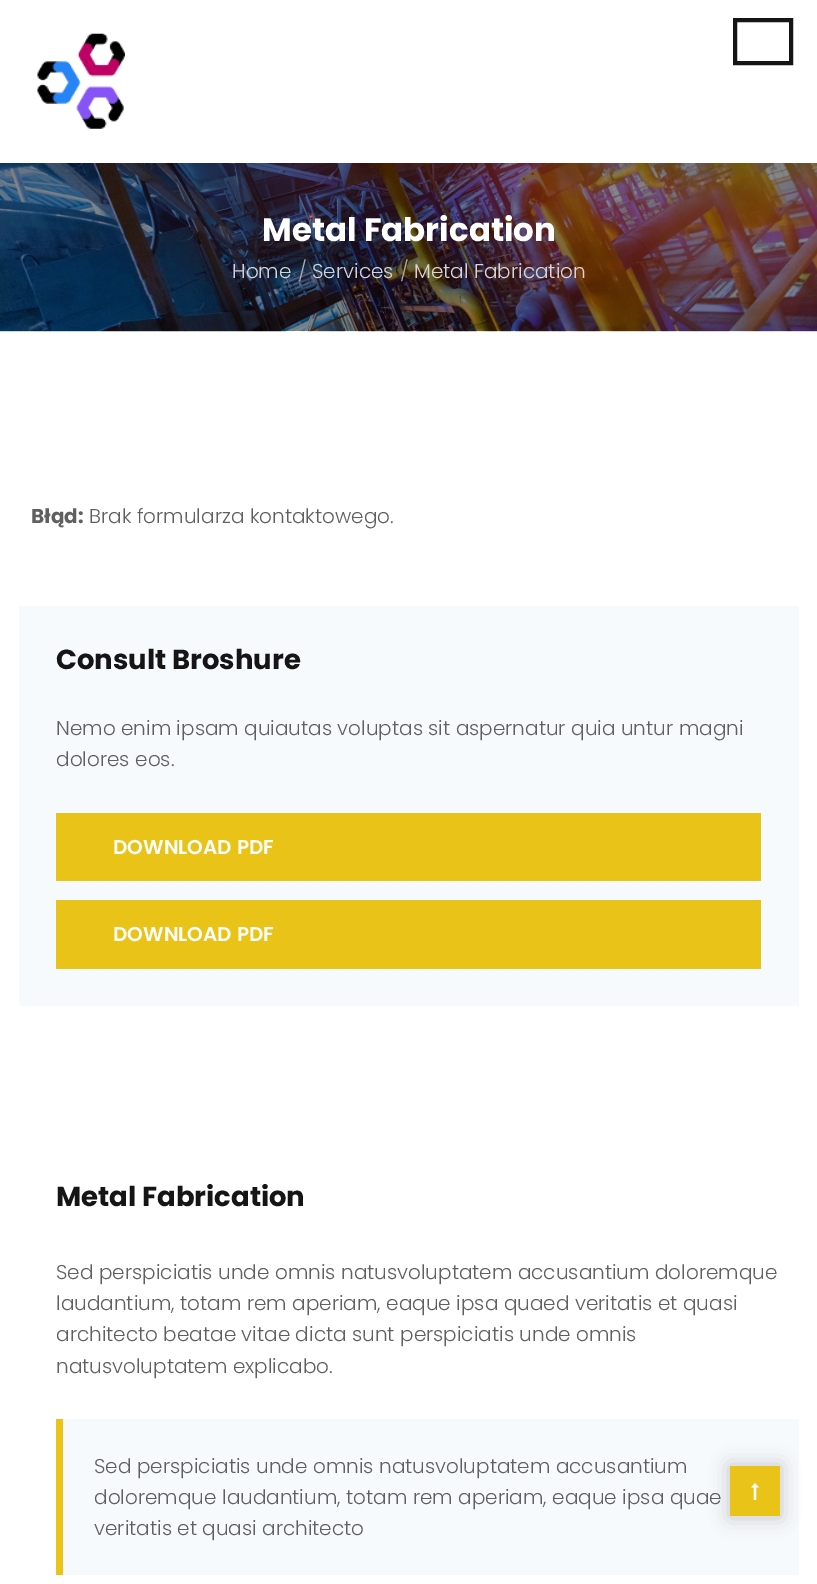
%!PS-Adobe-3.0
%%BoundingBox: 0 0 817 1584
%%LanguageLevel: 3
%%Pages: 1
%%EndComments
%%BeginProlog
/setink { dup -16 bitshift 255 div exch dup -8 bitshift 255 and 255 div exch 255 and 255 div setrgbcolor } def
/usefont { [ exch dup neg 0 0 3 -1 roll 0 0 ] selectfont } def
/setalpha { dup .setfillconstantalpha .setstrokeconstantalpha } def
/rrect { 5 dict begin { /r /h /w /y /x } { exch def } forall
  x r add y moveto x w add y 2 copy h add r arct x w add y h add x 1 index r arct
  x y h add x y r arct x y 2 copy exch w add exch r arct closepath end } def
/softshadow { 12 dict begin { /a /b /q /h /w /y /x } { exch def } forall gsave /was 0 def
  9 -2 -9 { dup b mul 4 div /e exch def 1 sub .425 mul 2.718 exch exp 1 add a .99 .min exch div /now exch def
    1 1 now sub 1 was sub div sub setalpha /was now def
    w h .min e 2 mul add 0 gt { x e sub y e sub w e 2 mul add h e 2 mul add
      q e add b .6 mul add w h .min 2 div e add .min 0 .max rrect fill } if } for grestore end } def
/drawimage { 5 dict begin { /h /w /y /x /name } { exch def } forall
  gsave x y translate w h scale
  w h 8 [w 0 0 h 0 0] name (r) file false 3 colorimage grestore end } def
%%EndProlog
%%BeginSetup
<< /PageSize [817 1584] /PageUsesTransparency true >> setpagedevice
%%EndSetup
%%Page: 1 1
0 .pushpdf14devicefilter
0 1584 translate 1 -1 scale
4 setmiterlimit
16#FFFFFF setink
0 0 817 1584 rectfill
(img2.raw) 0 163 817 169 drawimage
16#000000 setink
0 0 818 163 0 15.5 0.1 softshadow
16#FFFFFF setink
0 0 817 163 rectfill
(img1.raw) 37 33 88 96 drawimage
16#151515 setink
4 setlinewidth
735 20 56 43 rectstroke
/Poppins-Bold 32.5 usefont
16#FFFFFF setink
262 241 moveto (Metal Fabrication) show
/Poppins-Light 20 usefont
16#D1D4D9 setink
232 278 moveto (Home) show
16#AAADB2 setink
298 278 moveto (/) show
16#D1D4D9 setink
312 278 moveto (Services) show
16#AEABA7 setink
400 278 moveto (/) show
16#D9D5D5 setink
414 278 moveto (Metal Fabrication) show
/Poppins-Bold 20 usefont
16#606060 setink
31 523 moveto (Błąd:) show
/Poppins-Light 20 usefont
89 523 moveto (Brak formularza kontaktowego.) show
16#F7FAFD setink
19 606 780 400 rectfill
/Poppins-Bold 27.5 usefont
16#151515 setink
56 669 moveto (Consult Broshure) show
/Poppins-Light 20 usefont
16#606060 setink
56 735 moveto (Nemo enim ipsam quiautas voluptas sit aspernatur quia untur magni) show
56 766 moveto (dolores eos.) show
16#EAC319 setink
56 813 705 68 rectfill
/Poppins-SemiBold 20 usefont
16#FFFFFF setink
113 854 moveto (DOWNLOAD PDF) show
16#EAC319 setink
56 900 705 69 rectfill
16#FFFFFF setink
113 941 moveto (DOWNLOAD PDF) show
/Poppins-Bold 27.5 usefont
16#151515 setink
56 1206 moveto (Metal Fabrication) show
/Poppins-Light 20 usefont
16#606060 setink
[
    [(Sed perspiciatis unde omnis natusvoluptatem accusantium doloremque) 56 1279]
    [(laudantium, totam rem aperiam, eaque ipsa quaed veritatis et quasi) 56 1310]
    [(architecto beatae vitae dicta sunt perspiciatis unde omnis) 56 1341]
    [(natusvoluptatem explicabo.) 56 1373]
] { aload pop moveto show } forall
16#F7FAFD setink
63 1419 736 156 rectfill
16#EAC319 setink
56 1419 7 156 rectfill
16#606060 setink
[
    [(Sed perspiciatis unde omnis natusvoluptatem accusantium) 94 1473]
    [(doloremque laudantium, totam rem aperiam, eaque ipsa quae) 94 1504]
    [(veritatis et quasi architecto) 94 1535]
] { aload pop moveto show } forall
16#000000 setink
729 1465 52 53 0 9.5 0.2 softshadow
16#EAC319 setink
730 1466 50 50 rectfill
(img3.raw) 751 1483 8 17 drawimage
.poppdf14devicefilter showpage
%%EOF
